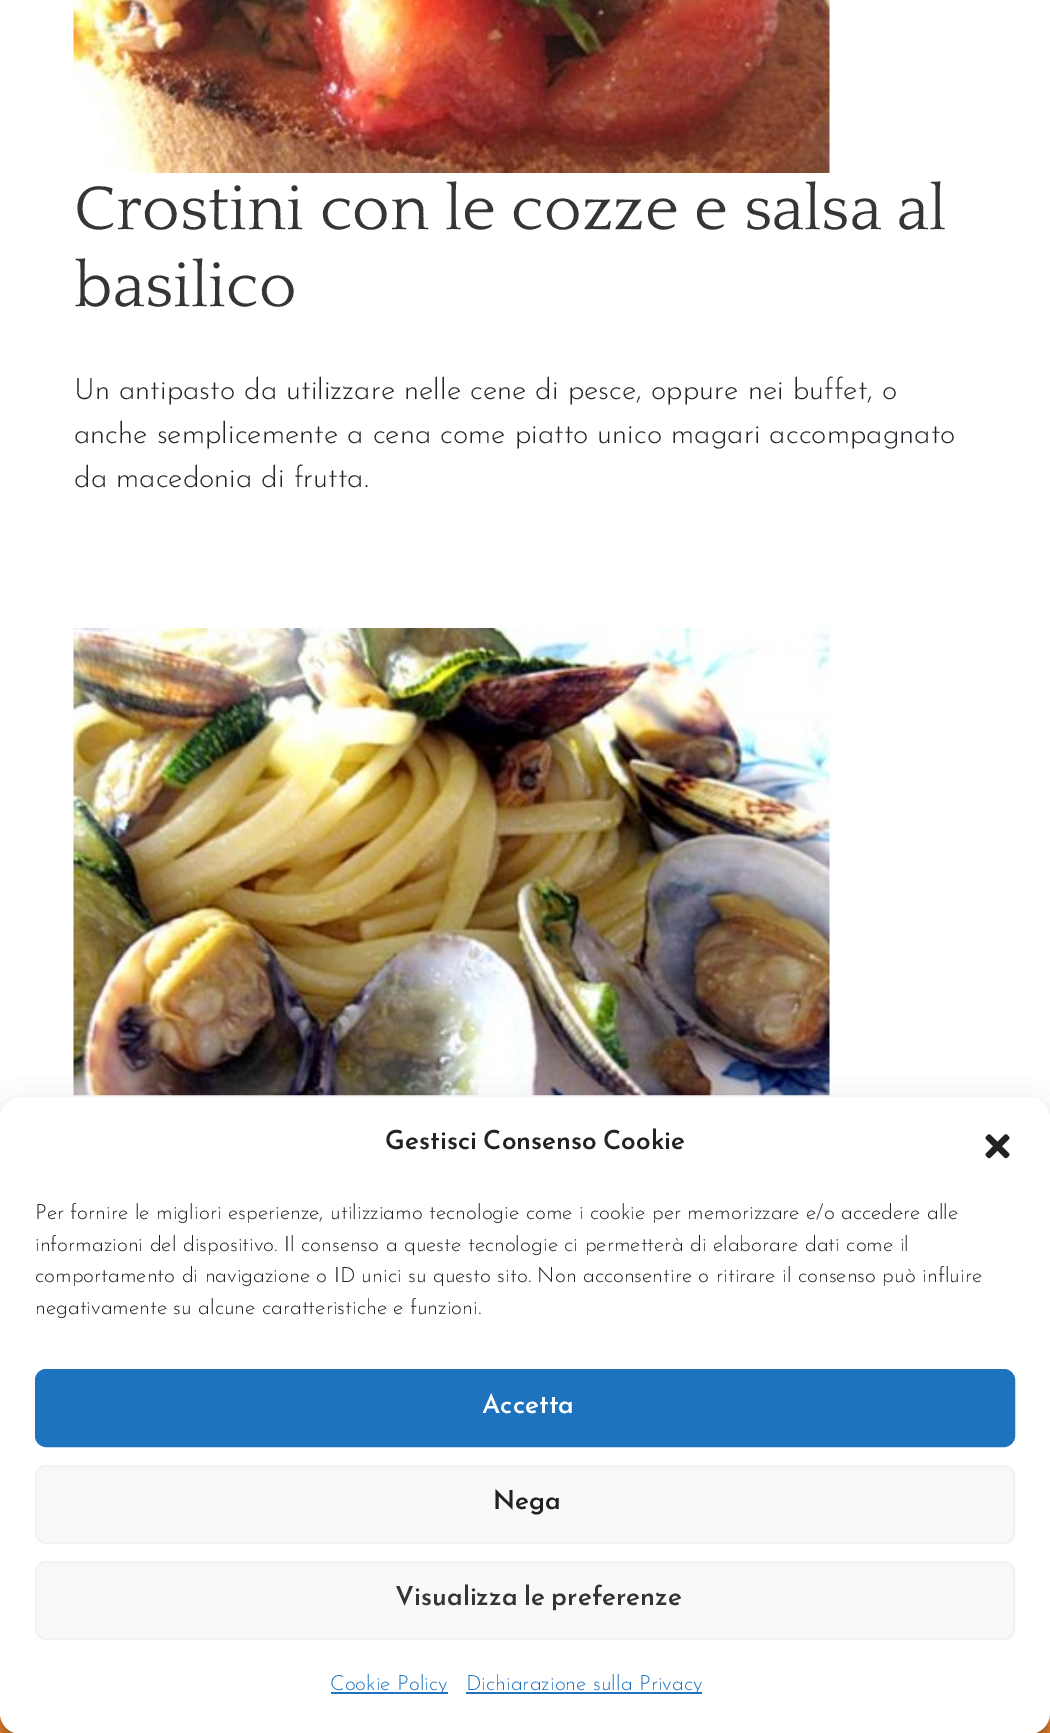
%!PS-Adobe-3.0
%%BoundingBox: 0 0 1050 1733
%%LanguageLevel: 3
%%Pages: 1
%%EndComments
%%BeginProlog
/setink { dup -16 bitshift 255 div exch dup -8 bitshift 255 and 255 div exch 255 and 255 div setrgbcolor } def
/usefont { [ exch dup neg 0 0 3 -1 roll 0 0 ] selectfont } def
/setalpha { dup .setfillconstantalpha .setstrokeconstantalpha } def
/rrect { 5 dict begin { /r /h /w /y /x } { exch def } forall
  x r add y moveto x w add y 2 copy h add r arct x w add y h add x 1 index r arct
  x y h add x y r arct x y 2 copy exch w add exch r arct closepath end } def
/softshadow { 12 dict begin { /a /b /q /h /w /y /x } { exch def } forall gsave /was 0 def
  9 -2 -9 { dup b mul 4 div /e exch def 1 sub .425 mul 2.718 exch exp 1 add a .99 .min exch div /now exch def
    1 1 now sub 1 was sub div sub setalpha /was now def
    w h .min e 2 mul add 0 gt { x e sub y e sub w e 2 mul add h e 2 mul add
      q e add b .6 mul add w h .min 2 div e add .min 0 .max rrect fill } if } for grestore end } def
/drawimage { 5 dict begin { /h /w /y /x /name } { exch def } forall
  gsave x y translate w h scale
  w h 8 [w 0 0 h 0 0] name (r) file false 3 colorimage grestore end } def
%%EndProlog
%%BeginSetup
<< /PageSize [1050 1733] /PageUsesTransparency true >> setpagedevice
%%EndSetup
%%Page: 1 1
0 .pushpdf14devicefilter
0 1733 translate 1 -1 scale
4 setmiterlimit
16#FFFFFF setink
0 0 1050 1733 rectfill
(img1.raw) 73 0 757 173 drawimage
/Quattrocento-Regular 64.5 usefont
16#353535 setink
74 229 moveto (Crostini con le cozze e salsa al) show
74 306 moveto (basilico) show
/JosefinSans-Light 29.4 usefont
16#212529 setink
[
    [(Un antipasto da utilizzare nelle cene di pesce, oppure nei buffet, o) 74 399]
    [(anche semplicemente a cena come piatto unico magari accompagnato) 74 443]
    [(da macedonia di frutta.) 74 487]
] { aload pop moveto show } forall
(img2.raw) 73 628 757 468 drawimage
16#F78B2D setink
0 1713 1050 20 rectfill
16#000000 setink
0 1108 1050 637 21 5 0.23 softshadow
0 1115 1050 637 21 17.5 0.19 softshadow
16#808080 setink
928 1605 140 105 4 4.5 1 softshadow
16#FFFFFF setink
0 1097 1050 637 21 rrect fill
/JosefinSans-SemiBold 26.25 usefont
16#222222 setink
385 1149 moveto -2 0 32 (Gestisci Consenso Cookie) widthshow
(img3.raw) 985 1134 25 25 drawimage
/JosefinSans-Light 21 usefont
[
    [(Per fornire le migliori esperienze, utilizziamo tecnologie come i cookie per memorizzare e/o accedere alle) 35 1219]
    [(informazioni del dispositivo. Il consenso a queste tecnologie ci permetterà di elaborare dati come il) 35 1251]
    [(comportamento di navigazione o ID unici su questo sito. Non acconsentire o ritirare il consenso può influire) 35 1282]
    [(negativamente su alcune caratteristiche e funzioni.) 35 1314]
] { aload pop moveto show } forall
16#1E73BE setink
36 1370 978 76 10 rrect gsave fill grestore
2 setlinewidth
stroke
/JosefinSans-SemiBold 26.25 usefont
16#FFFFFF setink
482 1413 moveto (Accetta) show
16#F9F9F9 setink
36 1466 978 77 10 rrect gsave fill grestore
16#F2F2F2 setink
stroke
16#222222 setink
493 1509 moveto (Nega) show
16#F9F9F9 setink
36 1562 978 77 10 rrect gsave fill grestore
16#F2F2F2 setink
stroke
16#353535 setink
395 1605 moveto -2 0 32 (Visualizza le preferenze) widthshow
16#1E73BE setink
331 1692 117 2 rectfill
/JosefinSans-Light 21 usefont
330 1690 moveto (Cookie Policy) show
466 1692 236 2 rectfill
466 1690 moveto (Dichiarazione sulla Privacy) show
.poppdf14devicefilter showpage
%%EOF
